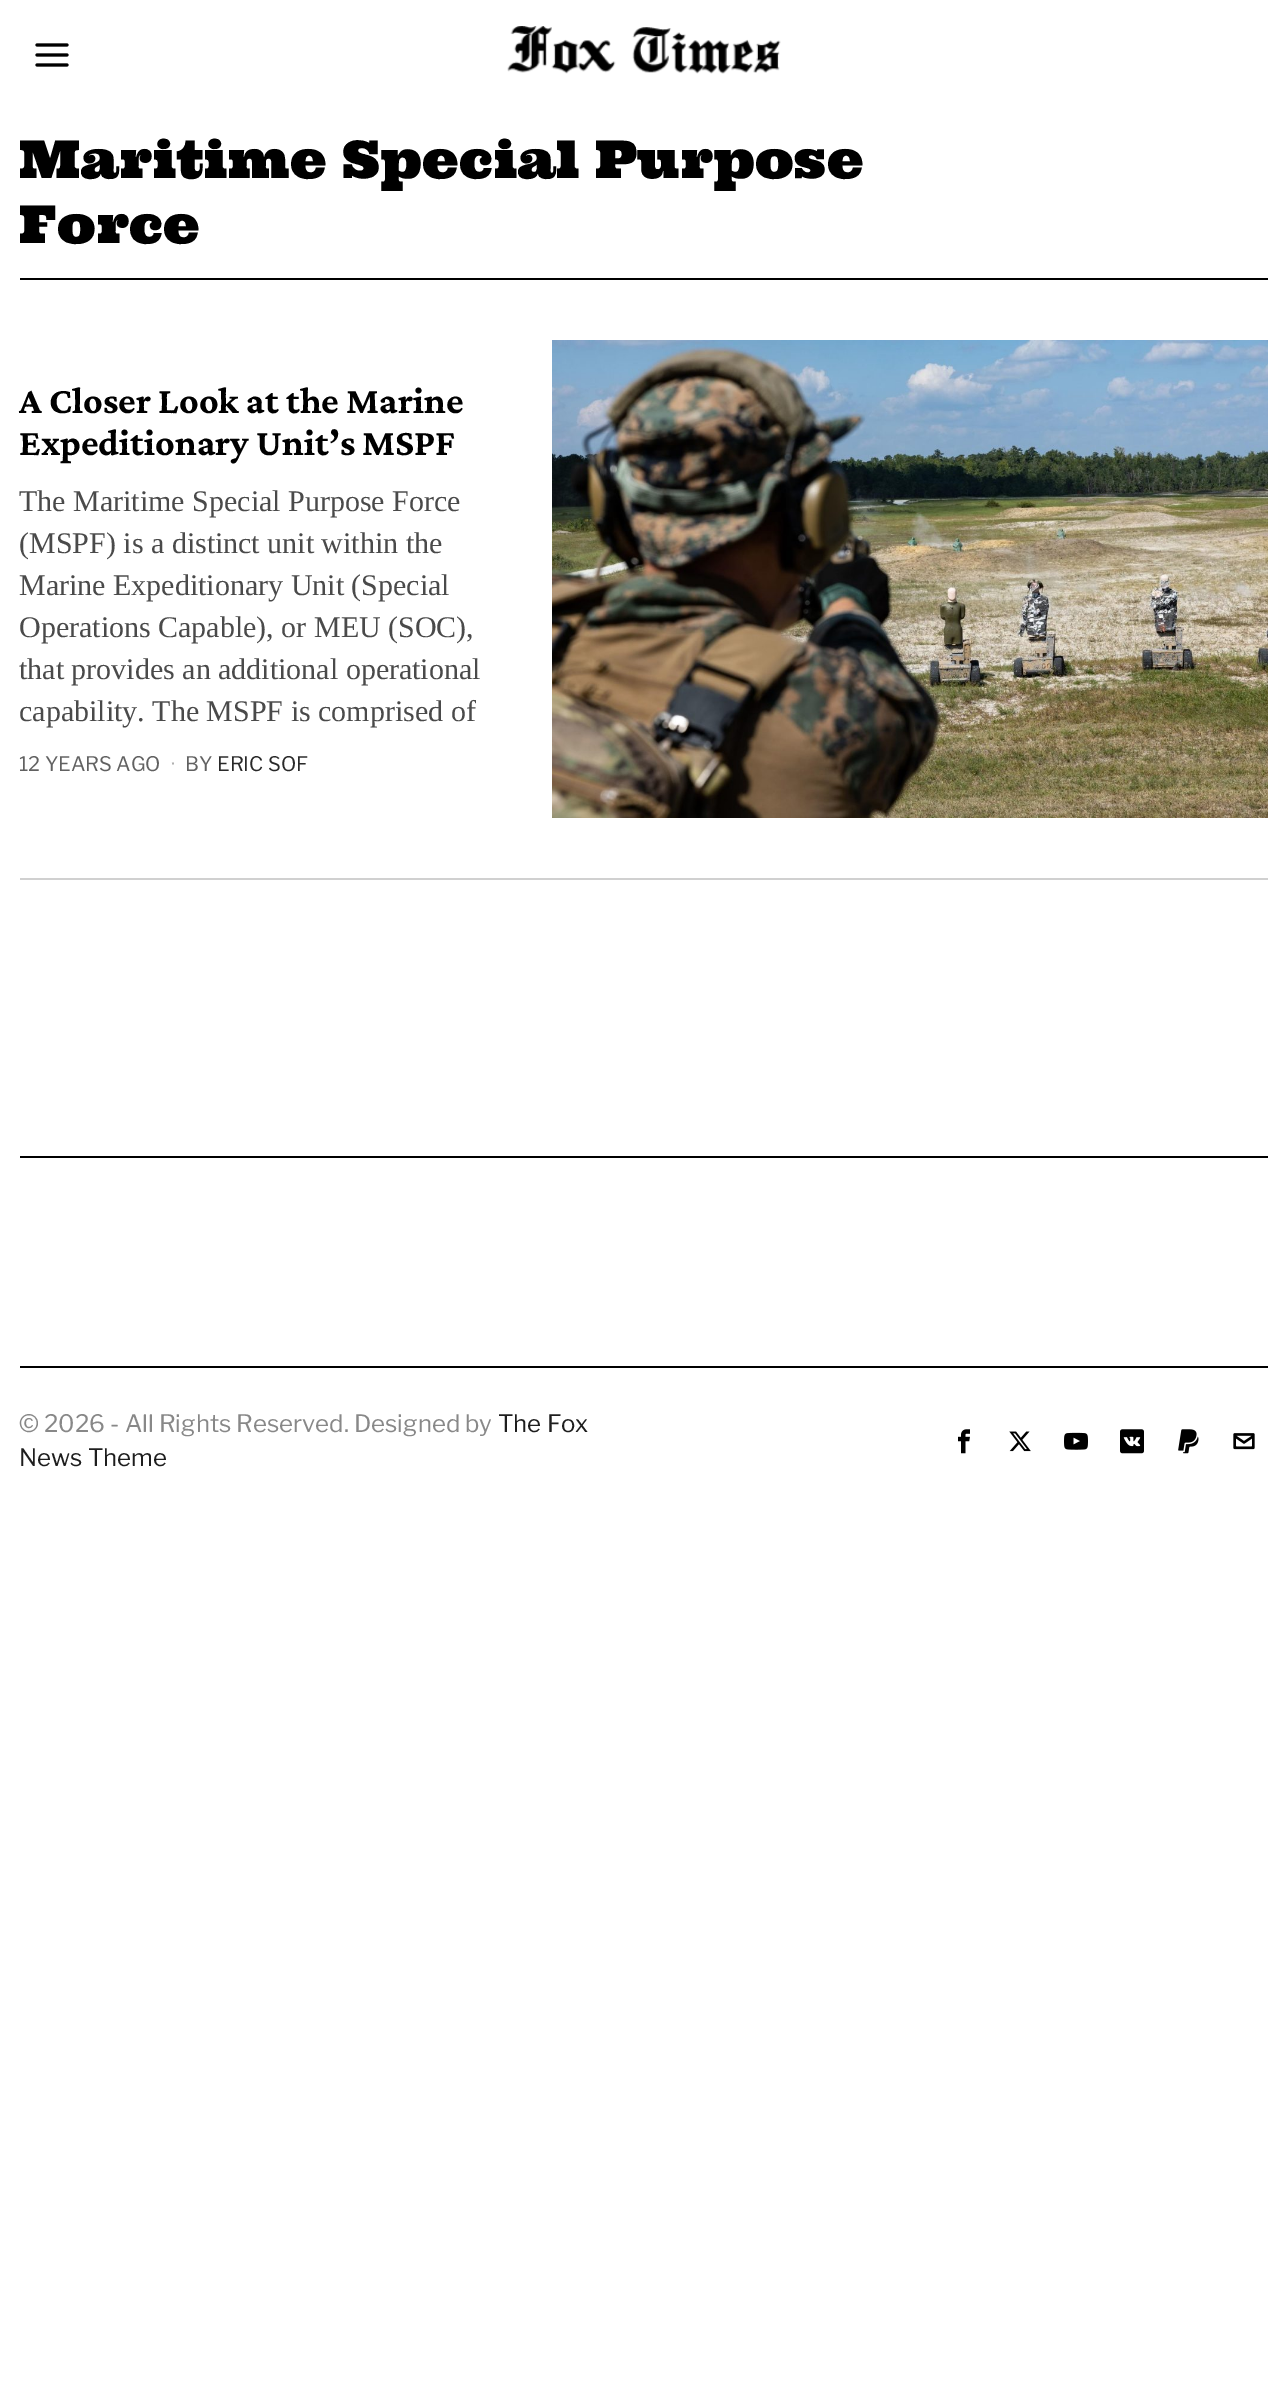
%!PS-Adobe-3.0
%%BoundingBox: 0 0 1288 2391
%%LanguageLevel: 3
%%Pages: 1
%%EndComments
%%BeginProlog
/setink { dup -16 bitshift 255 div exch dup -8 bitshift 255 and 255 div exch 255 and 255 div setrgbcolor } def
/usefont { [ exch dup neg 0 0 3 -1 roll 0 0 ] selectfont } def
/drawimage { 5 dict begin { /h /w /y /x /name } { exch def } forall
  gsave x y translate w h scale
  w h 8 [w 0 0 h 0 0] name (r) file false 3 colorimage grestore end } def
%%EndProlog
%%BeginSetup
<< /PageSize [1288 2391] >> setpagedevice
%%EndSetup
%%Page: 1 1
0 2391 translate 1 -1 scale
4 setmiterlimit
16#FFFFFF setink
0 0 1288 2391 rectfill
(img1.raw) 35 43 34 24 drawimage
(img2.raw) 507 26 274 48 drawimage
16#000000 setink
20 278 1248 2 rectfill
/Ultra-Regular 52 usefont
19 178 moveto (Maritime Special Purpose) show
19 243 moveto (Force) show
16#D0D0D0 setink
20 878 1248 2 rectfill
/CrimsonPro-Bold 38 usefont
16#000000 setink
19 413 moveto (A Closer Look at the Marine) show
19 455 moveto (Expeditionary Unit’s MSPF) show
/LiberationSerif-Regular 30 usefont
16#4A4A4A setink
[
    [(The Maritime Special Purpose Force) 19 511]
    [(\(MSPF\) is a distinct unit within the) 19 553]
    [(Marine Expeditionary Unit \(Special) 19 595]
    [(Operations Capable\), or MEU \(SOC\),) 19 637]
    [(that provides an additional operational) 19 679]
    [(capability. The MSPF is comprised of) 19 721]
] { aload pop moveto show } forall
/LibreFranklin-Regular 20 usefont
16#616161 setink
19 771 moveto (12 YEARS AGO) show
16#B0B0B0 setink
171 771 moveto (·) show
16#616161 setink
185 771 moveto (BY) show
16#292929 setink
217 771 moveto (ERIC SOF) show
(img3.raw) 552 340 716 478 drawimage
16#000000 setink
20 1156 1248 2 rectfill
20 1366 1248 2 rectfill
/LibreFranklin-Regular 24 usefont
16#888888 setink
19 1432 moveto (© 2026 - All Rights Reserved. Designed by) show
16#1E1E1E setink
498 1432 moveto (The Fox) show
19 1466 moveto (News Theme) show
(img4.raw) 958 1429 12 25 drawimage
(img5.raw) 1009 1431 22 21 drawimage
(img6.raw) 1064 1432 24 18 drawimage
(img7.raw) 1120 1429 24 25 drawimage
(img8.raw) 1178 1429 21 25 drawimage
(img9.raw) 1233 1433 22 17 drawimage
showpage
%%EOF
